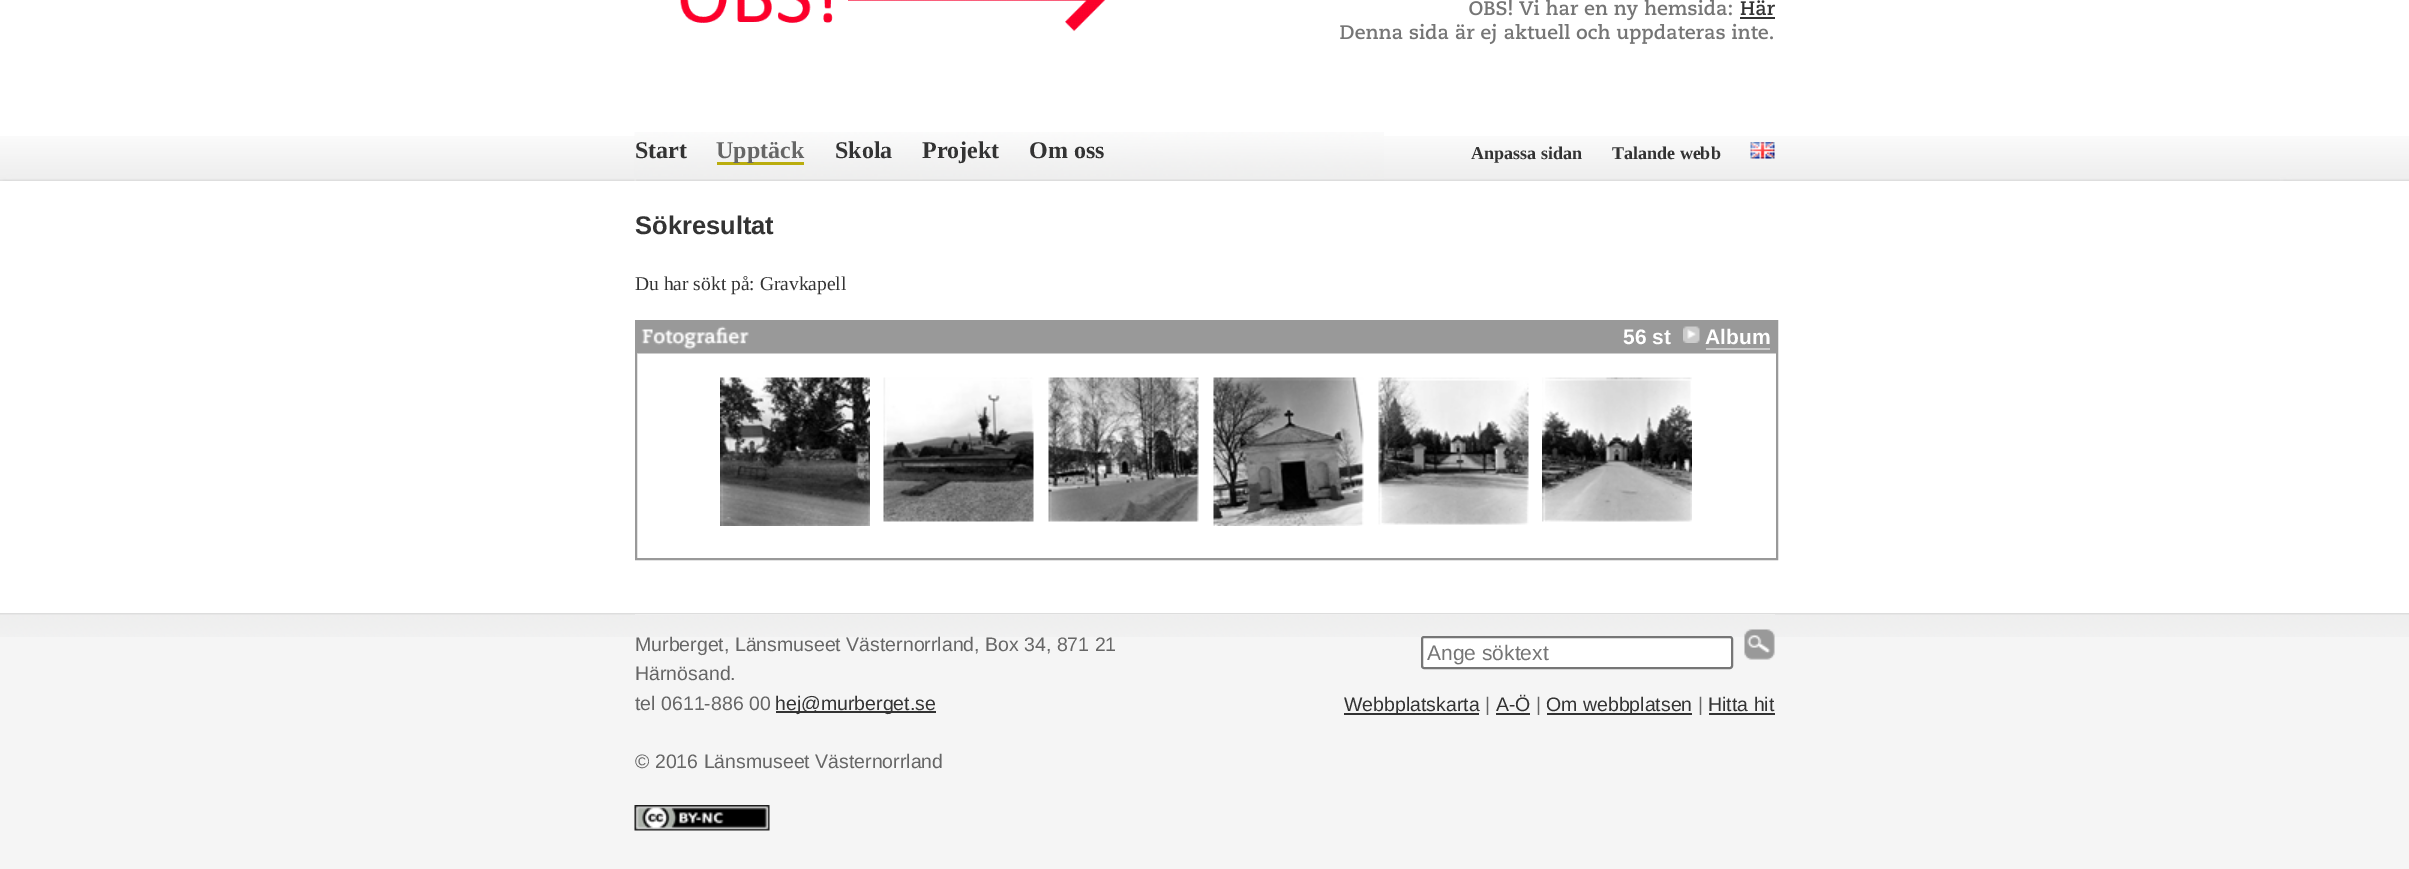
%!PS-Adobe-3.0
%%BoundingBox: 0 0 2409 869
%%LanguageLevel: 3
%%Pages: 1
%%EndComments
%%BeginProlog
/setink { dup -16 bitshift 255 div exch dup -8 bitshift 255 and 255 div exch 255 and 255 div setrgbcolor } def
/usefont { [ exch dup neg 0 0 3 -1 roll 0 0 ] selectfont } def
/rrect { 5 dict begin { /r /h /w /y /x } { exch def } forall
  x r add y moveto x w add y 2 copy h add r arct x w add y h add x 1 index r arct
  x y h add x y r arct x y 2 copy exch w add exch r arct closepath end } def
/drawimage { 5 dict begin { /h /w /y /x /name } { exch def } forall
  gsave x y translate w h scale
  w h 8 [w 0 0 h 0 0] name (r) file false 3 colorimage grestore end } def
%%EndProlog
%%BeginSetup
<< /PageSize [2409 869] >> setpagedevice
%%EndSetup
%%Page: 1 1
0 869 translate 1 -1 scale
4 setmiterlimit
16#FFFFFF setink
0 0 2409 869 rectfill
(img1.raw) 0 136 2409 45 drawimage
(img2.raw) 680 0 426 32 drawimage
(img3.raw) 1469 0 263 21 drawimage
(img4.raw) 1740 0 35 16 drawimage
16#333333 setink
1740 17 35 2 rectfill
(img5.raw) 1340 23 433 22 drawimage
(img6.raw) 634 132 750 49 drawimage
/LiberationSerif-Bold 24 usefont
635 158 moveto (Start) show
16#BAAD0E setink
717 162 87 3 rectfill
16#666666 setink
716 158 moveto (Upptäck) show
16#333333 setink
[
    [(Skola) 835 158]
    [(Projekt) 922 158]
    [(Om oss) 1029 158]
] { aload pop moveto show } forall
/LiberationSerif-Bold 18 usefont
1471 159 moveto (Anpassa sidan) show
1612 159 moveto (Talande webb) show
(img7.raw) 1750 142 25 17 drawimage
/LiberationSans-Bold 25.5 usefont
635 234 moveto (Sökresultat) show
/LiberationSerif-Regular 19.5 usefont
635 290 moveto (Du har sökt på: Gravkapell) show
16#999999 setink
2 setlinewidth
636 321 1141 238 rectstroke
(img8.raw) 637 322 1139 32 drawimage
/LiberationSans-Bold 21 usefont
16#FFFFFF setink
1623 344 moveto (56 st) show
(img9.raw) 1683 326 17 17 drawimage
1705 344 moveto (Album) show
16#CCCCCC setink
1706 348 64 2 rectfill
(img10.raw) 720 377 150 149 drawimage
(img11.raw) 883 377 151 145 drawimage
(img12.raw) 1048 377 151 145 drawimage
(img13.raw) 1213 377 151 149 drawimage
(img14.raw) 1378 377 151 148 drawimage
(img15.raw) 1542 377 150 145 drawimage
16#F5F5F5 setink
0 637 2409 232 rectfill
(img16.raw) 0 613 2409 24 drawimage
16#EFEFEF setink
635 614 1140 1 rectfill
/LiberationSans-Regular 19.5 usefont
16#666666 setink
[
    [(Murberget, Länsmuseet Västernorrland, Box 34, 871 21) 635 651]
    [(Härnösand.) 635 680]
    [(tel 0611-886 00) 635 710]
] { aload pop moveto show } forall
16#333333 setink
776 711 160 2 rectfill
775 710 moveto (hej@murberget.se) show
16#666666 setink
635 768 moveto (© 2016 Länsmuseet Västernorrland) show
(img17.raw) 634 805 136 26 drawimage
16#FFFFFF setink
1422 637 310 31 2 rrect gsave fill grestore
16#767676 setink
stroke
/LiberationSans-Regular 21 usefont
16#757575 setink
1427 660 moveto (Ange söktext) show
(img18.raw) 1744 629 31 31 drawimage
16#333333 setink
1344 713 135 2 rectfill
/LiberationSans-Regular 19.5 usefont
1344 711 moveto (Webbplatskarta) show
16#666666 setink
1485 711 moveto (|) show
16#333333 setink
1496 711 moveto (A-Ö) show
1496 713 34 2 rectfill
16#666666 setink
1536 711 moveto (|) show
16#333333 setink
1547 713 145 2 rectfill
1546 711 moveto (Om webbplatsen) show
16#666666 setink
1698 711 moveto (|) show
16#333333 setink
1708 711 moveto (Hitta hit) show
1709 713 66 2 rectfill
showpage
%%EOF
